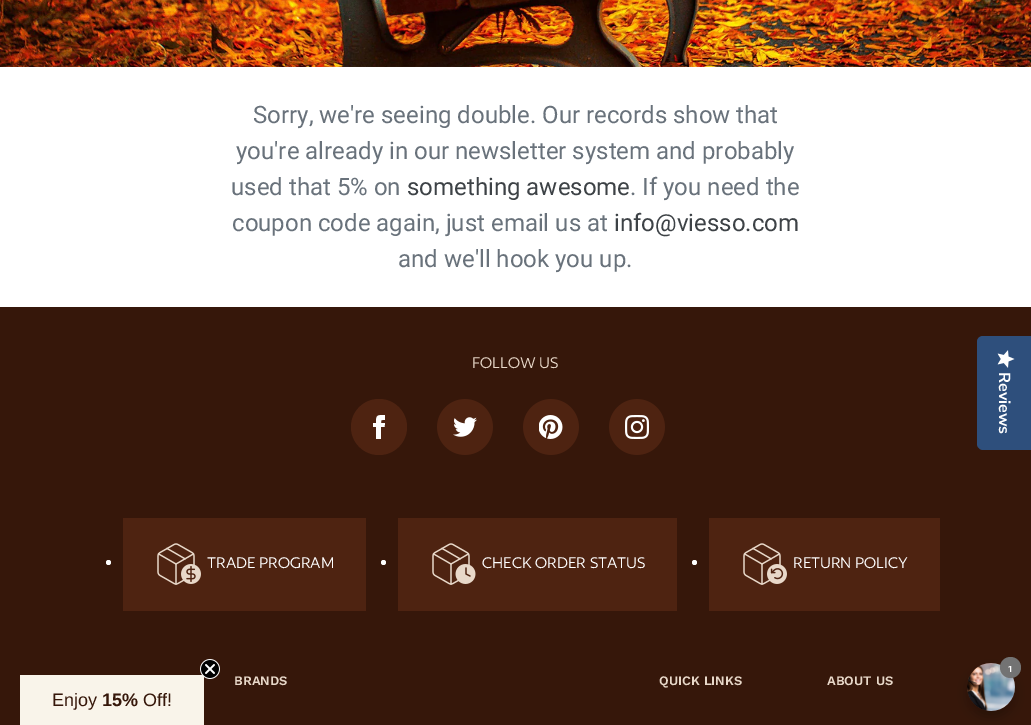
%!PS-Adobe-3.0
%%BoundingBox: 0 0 1031 725
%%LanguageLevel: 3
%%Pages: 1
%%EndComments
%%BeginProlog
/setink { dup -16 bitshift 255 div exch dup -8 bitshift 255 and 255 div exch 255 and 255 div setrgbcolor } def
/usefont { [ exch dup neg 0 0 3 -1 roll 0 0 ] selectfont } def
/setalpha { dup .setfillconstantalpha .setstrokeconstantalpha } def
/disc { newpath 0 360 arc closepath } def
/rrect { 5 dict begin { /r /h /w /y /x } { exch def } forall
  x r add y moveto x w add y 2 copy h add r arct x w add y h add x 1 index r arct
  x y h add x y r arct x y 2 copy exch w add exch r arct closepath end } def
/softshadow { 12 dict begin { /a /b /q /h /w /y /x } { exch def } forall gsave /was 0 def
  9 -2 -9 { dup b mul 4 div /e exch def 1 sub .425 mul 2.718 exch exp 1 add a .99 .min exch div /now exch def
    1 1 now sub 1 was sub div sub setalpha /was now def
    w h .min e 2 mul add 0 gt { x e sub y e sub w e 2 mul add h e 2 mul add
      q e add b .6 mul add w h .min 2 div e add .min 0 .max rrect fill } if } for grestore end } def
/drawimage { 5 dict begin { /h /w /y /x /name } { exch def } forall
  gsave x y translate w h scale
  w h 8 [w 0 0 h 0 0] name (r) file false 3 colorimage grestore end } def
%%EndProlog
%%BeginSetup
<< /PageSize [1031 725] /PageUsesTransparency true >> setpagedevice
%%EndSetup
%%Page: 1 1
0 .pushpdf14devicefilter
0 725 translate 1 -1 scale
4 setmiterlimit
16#FFFFFF setink
0 0 1031 725 rectfill
(img1.raw) 0 0 1031 67 drawimage
/Roboto-Regular 24 usefont
16#69727B setink
[
    [(Sorry, we're seeing double. Our records show that) 253 123]
    [(you're already in our newsletter system and probably) 236 159]
    [(used that 5% on) 231 195]
] { aload pop moveto show } forall
16#3D4246 setink
407 195 moveto (something awesome) show
16#69727B setink
630 195 moveto (. If you need the) show
232 231 moveto (coupon code again, just email us at) show
16#3D4246 setink
614 231 moveto (info@viesso.com) show
16#69727B setink
398 267 moveto (and we'll hook you up.) show
16#36170A setink
0 307 1031 418 rectfill
/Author-Regular 18 usefont
16#E8D8C9 setink
472 368 moveto (FOLLOW US) show
16#4E2311 setink
379 427 28 disc fill
16#FFFFFF setink
376 423 moveto 373 423 lineto 373 427 lineto 376 427 lineto 376 439 lineto 381 439 lineto 381 427 lineto 384.5 427 lineto 385 423 lineto 381 423 lineto 381 419.5 381 420 385 420 curveto 385 415 lineto 377 415 376 415 376 423 curveto closepath fill
(img2.raw) 437 399 56 56 drawimage
(img3.raw) 523 399 56 56 drawimage
(img4.raw) 609 399 56 56 drawimage
16#4E2311 setink
123 518 243 93 rectfill
16#FFFFFF setink
108.5 562.5 2.5 disc fill
(img5.raw) 157 543 44 42 drawimage
207 568 moveto (TRADE PROGRAM) show
16#4E2311 setink
398 518 279 93 rectfill
16#FFFFFF setink
383.5 562.5 2.5 disc fill
(img6.raw) 432 543 44 42 drawimage
482 568 moveto (CHECK ORDER STATUS) show
16#4E2311 setink
709 518 231 93 rectfill
16#FFFFFF setink
694.5 562.5 2.5 disc fill
(img7.raw) 743 543 44 42 drawimage
793 568 moveto (RETURN POLICY) show
/WorkSans-SemiBold 13 usefont
16#E8D8C9 setink
[
    [(BRANDS) 234 685]
    [(QUICK LINKS) 659 685]
    [(ABOUT US) 827 685]
] { aload pop moveto show } forall
16#2E4F7C setink
1031 336 moveto 1031 450 lineto 983 450 lineto 980 450 977 447 977 444 curveto 977 342 lineto 977 338 980 336 983 336 curveto closepath fill
(img8.raw) 997 350 18 18 drawimage
/NunitoSans-ExtraLight 16 usefont
16#FFFFFF setink
gsave 999 372 translate 90 rotate 0 0 moveto (Reviews) show grestore
16#000000 setink
967 669 48 48 24 6 0.25 softshadow
(img9.raw) 967 663 48 48 drawimage
16#737373 setink
1010.5 667.5 10.5 disc fill
/Author-Medium 12 usefont
16#FFFFFF setink
1008 672 moveto (1) show
16#F9F4EA setink
20 675 184 50 rectfill
(img10.raw) 200 659 20 20 drawimage
/LiberationSans-Regular 18 usefont
16#36170A setink
52 706 moveto (Enjoy) show
/LiberationSans-Bold 18 usefont
102 706 moveto (15%) show
/LiberationSans-Regular 18 usefont
143 706 moveto (Off!) show
.poppdf14devicefilter showpage
%%EOF
